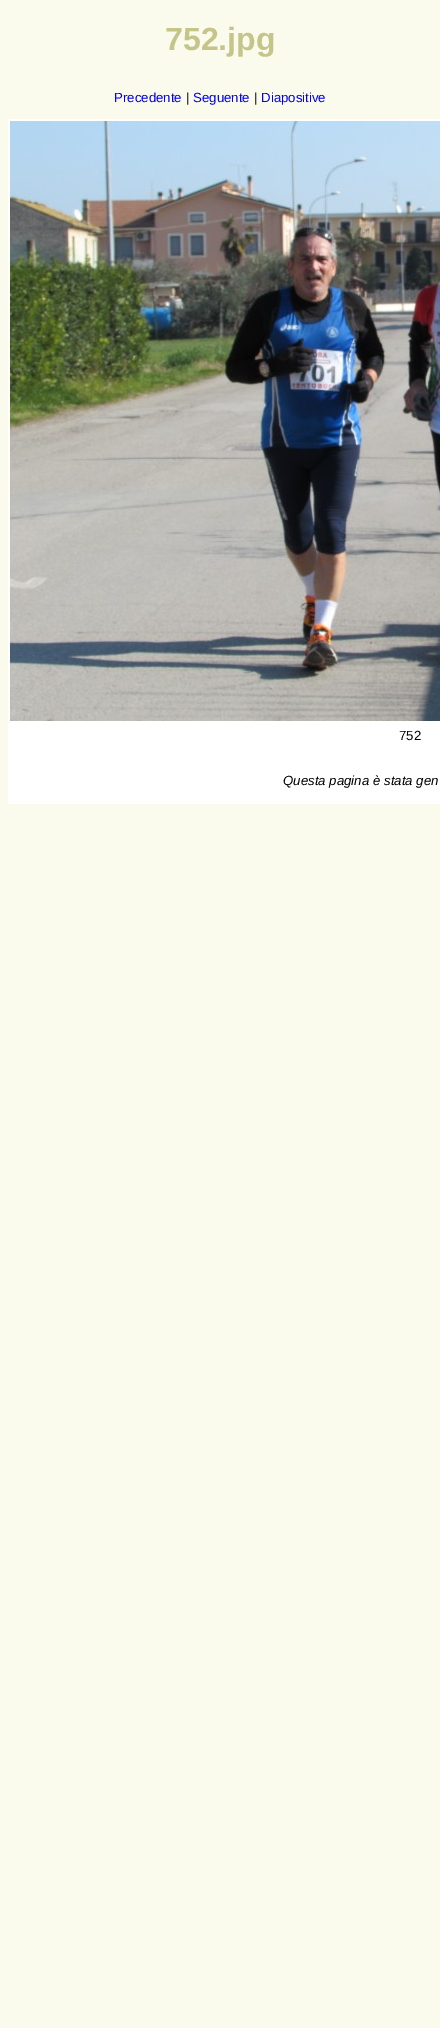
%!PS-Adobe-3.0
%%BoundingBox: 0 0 440 2028
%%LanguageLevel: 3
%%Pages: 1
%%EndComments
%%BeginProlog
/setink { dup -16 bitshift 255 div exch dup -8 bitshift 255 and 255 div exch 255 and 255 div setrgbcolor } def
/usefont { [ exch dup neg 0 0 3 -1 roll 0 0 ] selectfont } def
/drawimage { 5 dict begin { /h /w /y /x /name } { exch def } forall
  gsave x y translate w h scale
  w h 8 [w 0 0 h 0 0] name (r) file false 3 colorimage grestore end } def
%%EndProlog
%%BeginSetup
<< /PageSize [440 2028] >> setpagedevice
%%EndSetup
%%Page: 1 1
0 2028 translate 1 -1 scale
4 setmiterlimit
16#FAFAED setink
0 0 440 2028 rectfill
/LiberationSans-Bold 32 usefont
16#C5C589 setink
165 50 moveto (752.jpg) show
/LiberationSans-Regular 13.25 usefont
16#0000FF setink
114 102 moveto (Precedente) show
16#000000 setink
186 102 moveto (|) show
16#0000FF setink
193 102 moveto (Seguente) show
16#000000 setink
254 102 moveto (|) show
16#0000FF setink
261 102 moveto (Diapositive) show
16#FFFFFF setink
8 119 432 685 rectfill
(img1.raw) 10 121 430 600 drawimage
16#000000 setink
399 740 moveto (752) show
/LiberationSans-Italic 13.25 usefont
283 785 moveto (Questa pagina è stata gen) show
showpage
%%EOF
